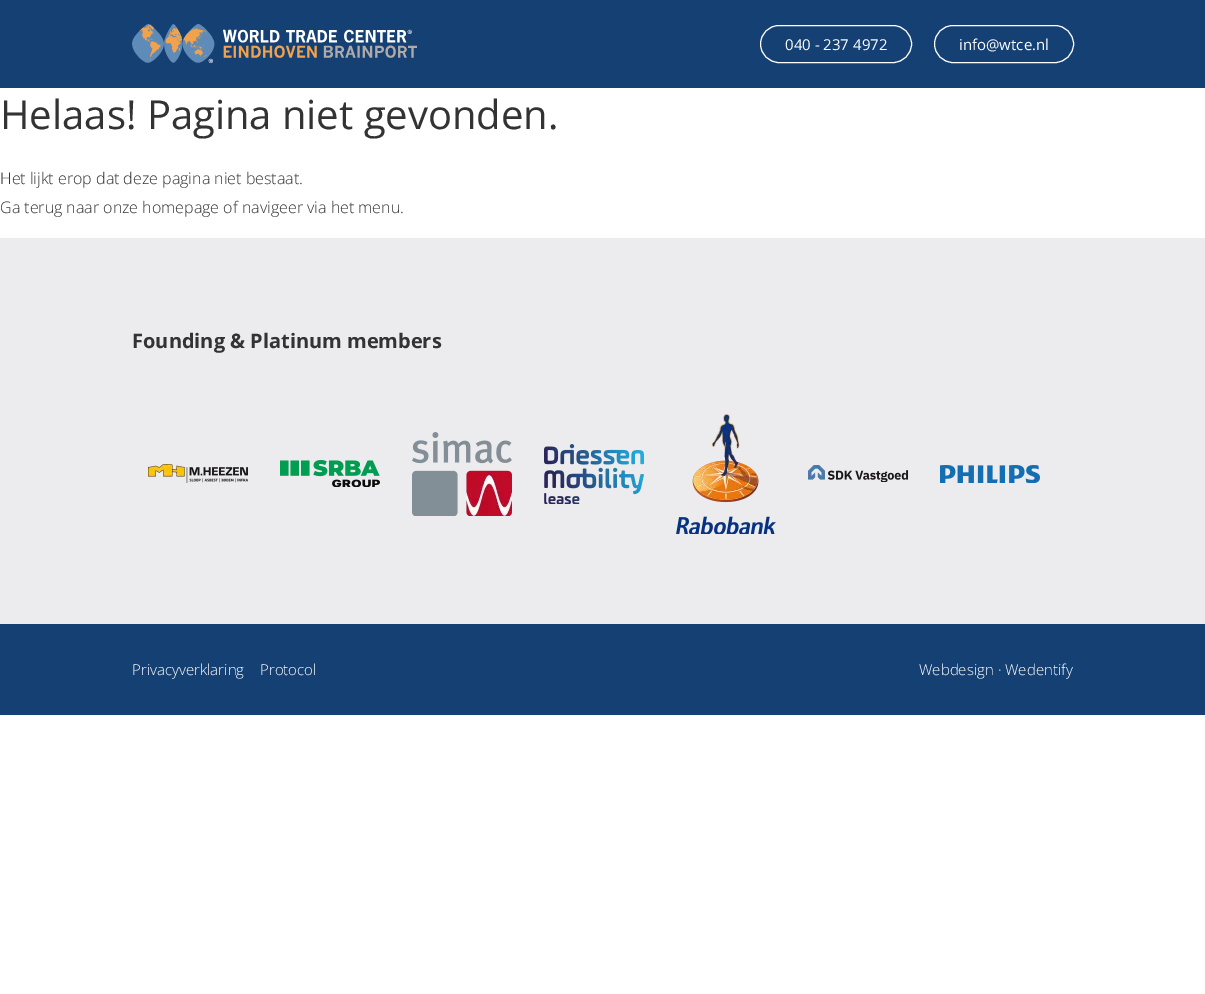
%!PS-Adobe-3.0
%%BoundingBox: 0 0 1205 994
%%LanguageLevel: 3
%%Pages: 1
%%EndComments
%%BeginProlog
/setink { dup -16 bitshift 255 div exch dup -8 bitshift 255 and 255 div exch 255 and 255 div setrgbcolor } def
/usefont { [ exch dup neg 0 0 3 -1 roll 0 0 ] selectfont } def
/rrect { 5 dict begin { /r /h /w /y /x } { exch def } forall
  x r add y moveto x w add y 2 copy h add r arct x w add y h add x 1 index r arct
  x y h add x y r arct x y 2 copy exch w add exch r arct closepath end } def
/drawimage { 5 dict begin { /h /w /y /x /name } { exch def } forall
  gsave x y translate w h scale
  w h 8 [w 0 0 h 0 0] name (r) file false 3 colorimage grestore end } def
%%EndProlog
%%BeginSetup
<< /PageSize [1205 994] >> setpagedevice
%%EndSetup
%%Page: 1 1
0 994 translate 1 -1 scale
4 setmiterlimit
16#FFFFFF setink
0 0 1205 994 rectfill
16#154074 setink
0 0 1205 88 rectfill
(img1.raw) 132 24 285 40 drawimage
16#FFFFFF setink
760.5 25.5 151 37 18.5 rrect stroke
/OpenSans-Regular 15 usefont
785 50 moveto (040 - 237 4972) show
934.5 25.5 139 37 18.5 rrect stroke
959 50 moveto (info@wtce.nl) show
/OpenSans-Regular 40 usefont
16#333333 setink
0 129 moveto (Helaas! Pagina niet gevonden.) show
/OpenSans-Light 16 usefont
0 184 moveto (Het lijkt erop dat deze pagina niet bestaat.) show
0 213 moveto (Ga terug naar onze homepage of navigeer via het menu.) show
16#ECECEF setink
0 238 1205 386 rectfill
/OpenSans-Bold 20 usefont
16#333333 setink
132 348 moveto (Founding & Platinum members) show
(img2.raw) 148 464 100 19 drawimage
(img3.raw) 280 460 100 27 drawimage
(img4.raw) 412 432 100 84 drawimage
(img5.raw) 544 444 100 60 drawimage
(img6.raw) 676 414 100 120 drawimage
(img7.raw) 808 465 100 17 drawimage
(img8.raw) 940 465 100 18 drawimage
16#154074 setink
0 624 1205 91 rectfill
/OpenSans-Light 15 usefont
16#FFFFFF setink
[
    [(Privacyverklaring) 132 675]
    [(Protocol) 260 675]
    [(Webdesign · Wedentify) 919 675]
] { aload pop moveto show } forall
showpage
%%EOF
